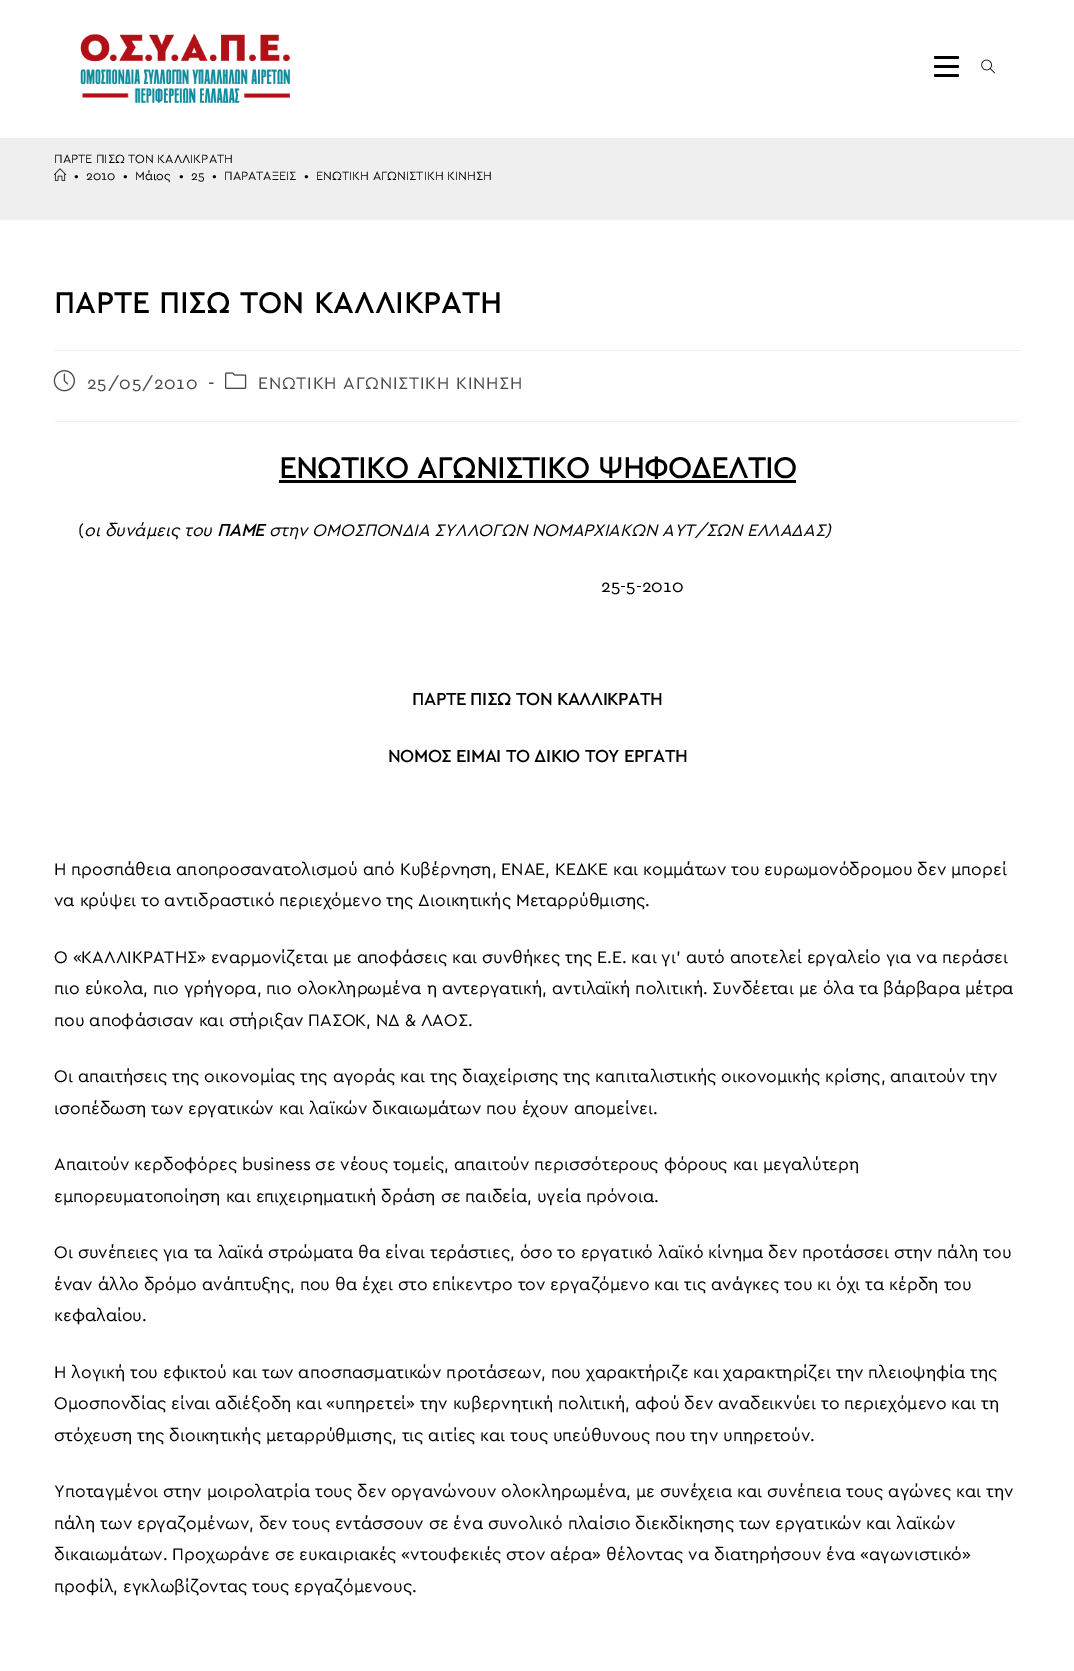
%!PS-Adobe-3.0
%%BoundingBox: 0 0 1074 1671
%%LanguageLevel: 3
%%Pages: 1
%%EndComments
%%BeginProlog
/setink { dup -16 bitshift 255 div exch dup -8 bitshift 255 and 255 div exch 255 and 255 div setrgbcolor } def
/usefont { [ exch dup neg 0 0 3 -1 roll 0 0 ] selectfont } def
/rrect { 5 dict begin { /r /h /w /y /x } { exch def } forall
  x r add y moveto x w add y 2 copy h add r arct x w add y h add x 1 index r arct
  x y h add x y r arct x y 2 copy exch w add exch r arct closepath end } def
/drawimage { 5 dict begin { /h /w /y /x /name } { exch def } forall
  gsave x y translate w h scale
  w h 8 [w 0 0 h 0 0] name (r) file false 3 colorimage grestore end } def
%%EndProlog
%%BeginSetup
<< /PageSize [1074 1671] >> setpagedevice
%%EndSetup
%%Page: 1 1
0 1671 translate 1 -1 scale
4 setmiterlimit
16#FFFFFF setink
0 0 1074 1671 rectfill
(img1.raw) 80 33 210 70 drawimage
16#000000 setink
934 65 25 3 1.5 rrect fill
934 56 25 3 1.5 rrect fill
934 74 25 3 1.5 rrect fill
(img2.raw) 981 59 14 15 drawimage
16#EFEFEF setink
0 138 1074 82 rectfill
/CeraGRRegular-Regular 12.5 usefont
16#000000 setink
54 163 moveto (ΠΑΡΤΕ ΠΙΣΩ ΤΟΝ ΚΑΛΛΙΚΡΑΤΗ) show
(img3.raw) 54 168 13 13 drawimage
[
    [(•) 74 180]
    [(2010) 86 180]
    [(•) 123 180]
    [(Μάιος) 135 180]
    [(•) 179 180]
    [(25) 191 180]
    [(•) 212 180]
    [(ΠΑΡΑΤΑΞΕΙΣ) 224 180]
    [(•) 304 180]
    [(ΕΝΩΤΙΚΗ ΑΓΩΝΙΣΤΙΚΗ ΚΙΝΗΣΗ) 316 180]
] { aload pop moveto show } forall
16#F1F1F1 setink
54 350 967 1 rectfill
/CeraGRRegular-Bold 30 usefont
16#000000 setink
54 313 moveto 0.75 0 (ΠΑΡΤΕ ΠΙΣΩ ΤΟΝ ΚΑΛΛΙΚΡΑΤΗ) ashow
16#F1F1F1 setink
54 421 967 1 rectfill
(img4.raw) 53 370 22 22 drawimage
/CeraGRRegular-Regular 17.5 usefont
16#4A4A4A setink
87 389 moveto 0.75 0 (25/05/2010) ashow
/CeraGRRegular-Bold 17.5 usefont
208 389 moveto 0.75 0 (-) ashow
(img5.raw) 225 372 22 17 drawimage
/CeraGRRegular-Regular 17.5 usefont
258 389 moveto 0.75 0 (ΕΝΩΤΙΚΗ ΑΓΩΝΙΣΤΙΚΗ ΚΙΝΗΣΗ) ashow
/CeraGRRegular-Bold 30 usefont
16#000000 setink
279 478 moveto (ΕΝΩΤΙΚΟ ΑΓΩΝΙΣΤΙΚΟ ΨΗΦΟΔΕΛΤΙΟ) show
279 480 517 3 rectfill
/CeraGRRegular-Regular 17.5 usefont
78 536 moveto (\() show
/CeraGRRegular-Italic 17.5 usefont
84 536 moveto (οι δυνάμεις του) show
/CeraGRRegular-BoldItalic 17.5 usefont
217 536 moveto (ΠΑΜΕ) show
/CeraGRRegular-Italic 17.5 usefont
269 536 moveto (στην ΟΜΟΣΠΟΝΔΙΑ ΣΥΛΛΟΓΩΝ ΝΟΜΑΡΧΙΑΚΩΝ ΑΥΤ/ΣΩΝ ΕΛΛΑΔΑΣ\)) show
/CeraGRRegular-Regular 17.5 usefont
601 592 moveto (25-5-2010) show
/CeraGRRegular-Bold 17.5 usefont
412 705 moveto (ΠΑΡΤΕ ΠΙΣΩ ΤΟΝ ΚΑΛΛΙΚΡΑΤΗ) show
388 762 moveto (ΝΟΜΟΣ ΕΙΜΑΙ ΤΟ ΔΙΚΙΟ ΤΟΥ ΕΡΓΑΤΗ) show
/CeraGRRegular-Regular 17.5 usefont
[
    [(Η προσπάθεια αποπροσανατολισμού από Κυβέρνηση, ΕΝΑΕ, ΚΕΔΚΕ και κομμάτων του ευρωμονόδρομου δεν μπορεί) 54 875]
    [(να κρύψει το αντιδραστικό περιεχόμενο της Διοικητικής Μεταρρύθμισης.) 54 906]
    [(Ο «ΚΑΛΛΙΚΡΑΤΗΣ» εναρμονίζεται με αποφάσεις και συνθήκες της Ε.Ε. και γι’ αυτό αποτελεί εργαλείο για να περάσει) 54 963]
    [(πιο εύκολα, πιο γρήγορα, πιο ολοκληρωμένα η αντεργατική, αντιλαϊκή πολιτική. Συνδέεται με όλα τα βάρβαρα μέτρα) 54 994]
    [(που αποφάσισαν και στήριξαν ΠΑΣΟΚ, ΝΔ & ΛΑΟΣ.) 54 1026]
    [(Οι απαιτήσεις της οικονομίας της αγοράς και της διαχείρισης της καπιταλιστικής οικονομικής κρίσης, απαιτούν την) 54 1082]
    [(ισοπέδωση των εργατικών και λαϊκών δικαιωμάτων που έχουν απομείνει.) 54 1114]
    [(Απαιτούν κερδοφόρες business σε νέους τομείς, απαιτούν περισσότερους φόρους και μεγαλύτερη) 54 1170]
    [(εμπορευματοποίηση και επιχειρηματική δράση σε παιδεία, υγεία πρόνοια.) 54 1202]
    [(Οι συνέπειες για τα λαϊκά στρώματα θα είναι τεράστιες, όσο το εργατικό λαϊκό κίνημα δεν προτάσσει στην πάλη του) 54 1258]
    [(έναν άλλο δρόμο ανάπτυξης, που θα έχει στο επίκεντρο τον εργαζόμενο και τις ανάγκες του κι όχι τα κέρδη του) 54 1290]
    [(κεφαλαίου.) 54 1321]
    [(Η λογική του εφικτού και των αποσπασματικών προτάσεων, που χαρακτήριζε και χαρακτηρίζει την πλειοψηφία της) 54 1378]
    [(Ομοσπονδίας είναι αδιέξοδη και «υπηρετεί» την κυβερνητική πολιτική, αφού δεν αναδεικνύει το περιεχόμενο και τη) 54 1409]
    [(στόχευση της διοικητικής μεταρρύθμισης, τις αιτίες και τους υπεύθυνους που την υπηρετούν.) 54 1441]
    [(Υποταγμένοι στην μοιρολατρία τους δεν οργανώνουν ολοκληρωμένα, με συνέχεια και συνέπεια τους αγώνες και την) 54 1497]
    [(πάλη των εργαζομένων, δεν τους εντάσσουν σε ένα συνολικό πλαίσιο διεκδίκησης των εργατικών και λαϊκών) 54 1529]
    [(δικαιωμάτων. Προχωράνε σε ευκαιριακές «ντουφεκιές στον αέρα» θέλοντας να διατηρήσουν ένα «αγωνιστικό») 54 1560]
    [(προφίλ, εγκλωβίζοντας τους εργαζόμενους.) 54 1592]
] { aload pop moveto show } forall
showpage
%%EOF
